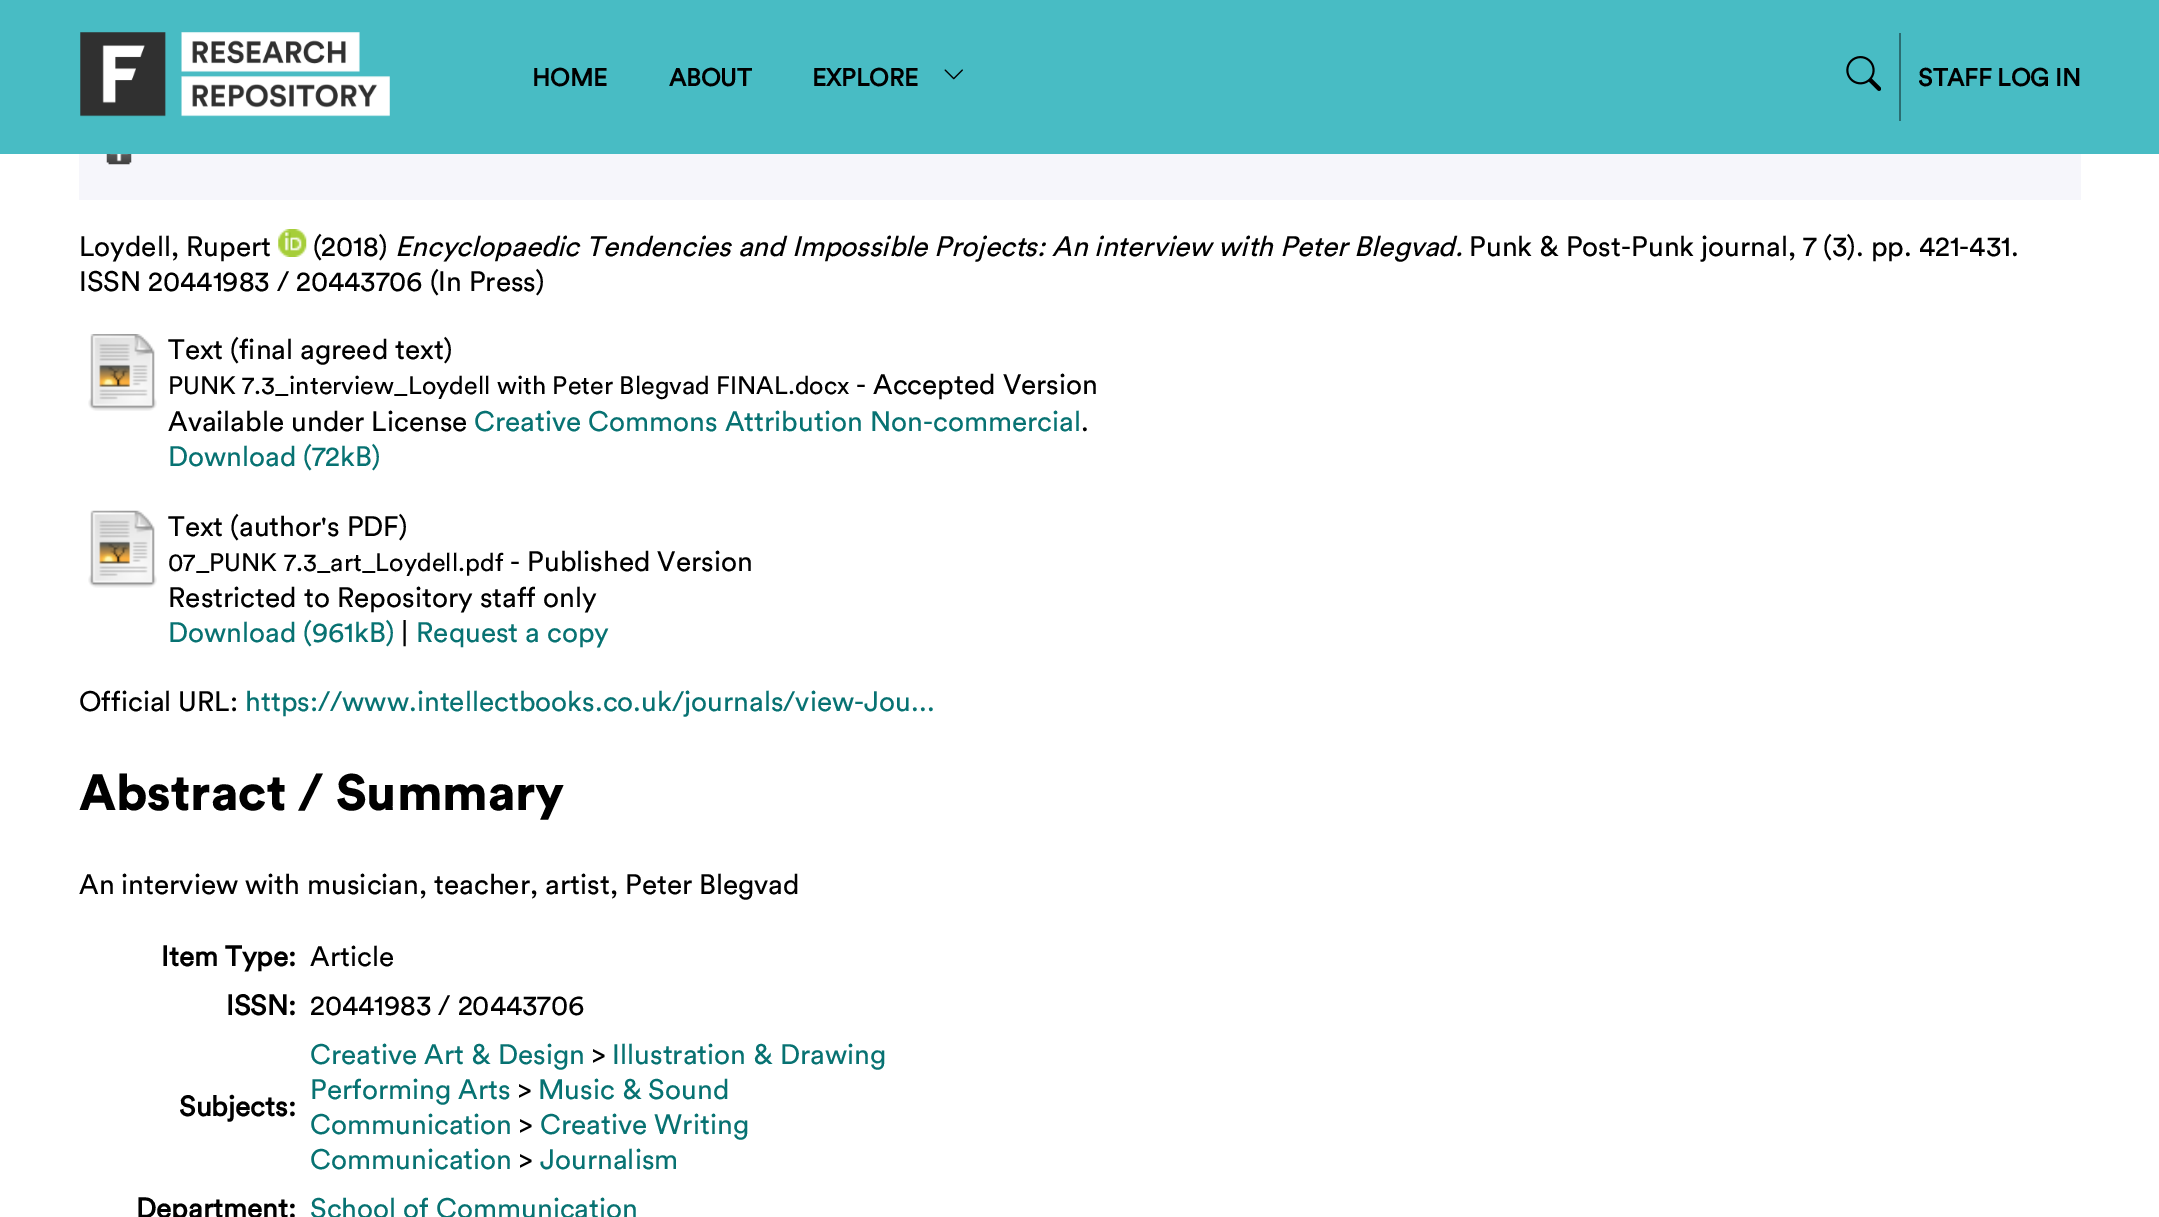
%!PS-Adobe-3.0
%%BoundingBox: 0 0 2159 1217
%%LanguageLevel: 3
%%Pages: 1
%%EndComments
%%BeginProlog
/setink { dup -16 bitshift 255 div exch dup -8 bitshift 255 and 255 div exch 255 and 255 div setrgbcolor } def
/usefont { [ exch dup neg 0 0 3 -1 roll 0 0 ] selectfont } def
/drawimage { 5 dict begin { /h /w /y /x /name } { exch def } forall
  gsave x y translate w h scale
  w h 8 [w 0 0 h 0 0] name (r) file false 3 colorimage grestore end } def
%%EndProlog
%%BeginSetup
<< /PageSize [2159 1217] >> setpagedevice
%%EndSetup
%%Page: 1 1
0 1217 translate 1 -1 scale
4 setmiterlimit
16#FFFFFF setink
0 0 2159 1217 rectfill
16#48BCC4 setink
0 0 2159 154 rectfill
(img1.raw) 80 32 310 85 drawimage
/Circular-Bold 24.5 usefont
16#000000 setink
[
    [(HOME) 532 86]
    [(ABOUT) 669 86]
    [(EXPLORE) 812 86]
] { aload pop moveto show } forall
(img2.raw) 944 69 19 11 drawimage
(img3.raw) 1846 56 35 35 drawimage
16#2A6D72 setink
1899 33 2 88 rectfill
16#000000 setink
1918 86 moveto (STAFF LOG IN) show
16#F6F6FB setink
79 154 2002 46 rectfill
(img4.raw) 106 154 26 11 drawimage
/Circular-Regular 28 usefont
16#000000 setink
79 256 moveto (Loydell, Rupert) show
(img5.raw) 278 229 29 28 drawimage
313 256 moveto (\(2018\)) show
/Circular-Italic 28 usefont
395 256 moveto (Encyclopaedic Tendencies and Impossible Projects: An interview with Peter Blegvad.) show
/Circular-Regular 28 usefont
1469 256 moveto (Punk & Post-Punk journal, 7 \(3\). pp. 421-431.) show
79 291 moveto (ISSN 20441983 / 20443706 \(In Press\)) show
(img6.raw) 88 334 69 77 drawimage
168 359 moveto (Text \(final agreed text\)) show
/Circular-Regular 25.2 usefont
168 394 moveto (PUNK 7.3_interview_Loydell with Peter Blegvad FINAL.docx) show
/Circular-Regular 28 usefont
856 394 moveto (- Accepted Version) show
168 431 moveto (Available under License) show
16#077272 setink
474 431 moveto (Creative Commons Attribution Non-commercial) show
16#000000 setink
1081 431 moveto (.) show
16#077272 setink
168 466 moveto (Download \(72kB\)) show
(img7.raw) 88 510 69 78 drawimage
16#000000 setink
168 536 moveto (Text \(author's PDF\)) show
/Circular-Regular 25.2 usefont
168 571 moveto (07_PUNK 7.3_art_Loydell.pdf) show
/Circular-Regular 28 usefont
510 571 moveto (- Published Version) show
168 607 moveto (Restricted to Repository staff only) show
16#077272 setink
168 642 moveto (Download \(961kB\)) show
16#000000 setink
401 642 moveto (|) show
16#077272 setink
416 642 moveto (Request a copy) show
16#000000 setink
79 711 moveto (Official URL:) show
16#077272 setink
245 711 moveto (https://www.intellectbooks.co.uk/journals/view-Jou...) show
/Circular-Black 50.5 usefont
16#000000 setink
79 810 moveto (Abstract / Summary) show
/Circular-Regular 28 usefont
79 894 moveto (An interview with musician, teacher, artist, Peter Blegvad) show
/Circular-Bold 28 usefont
161 966 moveto (Item Type:) show
/Circular-Regular 28 usefont
310 966 moveto (Article) show
/Circular-Bold 28 usefont
226 1015 moveto (ISSN:) show
/Circular-Regular 28 usefont
310 1015 moveto (20441983 / 20443706) show
/Circular-Bold 28 usefont
179 1116 moveto (Subjects:) show
/Circular-Regular 28 usefont
16#077272 setink
310 1064 moveto (Creative Art & Design) show
16#000000 setink
592 1064 moveto (>) show
16#077272 setink
612 1064 moveto (Illustration & Drawing) show
310 1099 moveto (Performing Arts) show
16#000000 setink
518 1099 moveto (>) show
16#077272 setink
538 1099 moveto (Music & Sound) show
310 1134 moveto (Communication) show
16#000000 setink
519 1134 moveto (>) show
16#077272 setink
540 1134 moveto (Creative Writing) show
310 1169 moveto (Communication) show
16#000000 setink
519 1169 moveto (>) show
16#077272 setink
540 1169 moveto (Journalism) show
/Circular-Bold 28 usefont
16#000000 setink
136 1218 moveto (Department:) show
/Circular-Regular 28 usefont
16#077272 setink
310 1218 moveto (School of Communication) show
showpage
%%EOF
